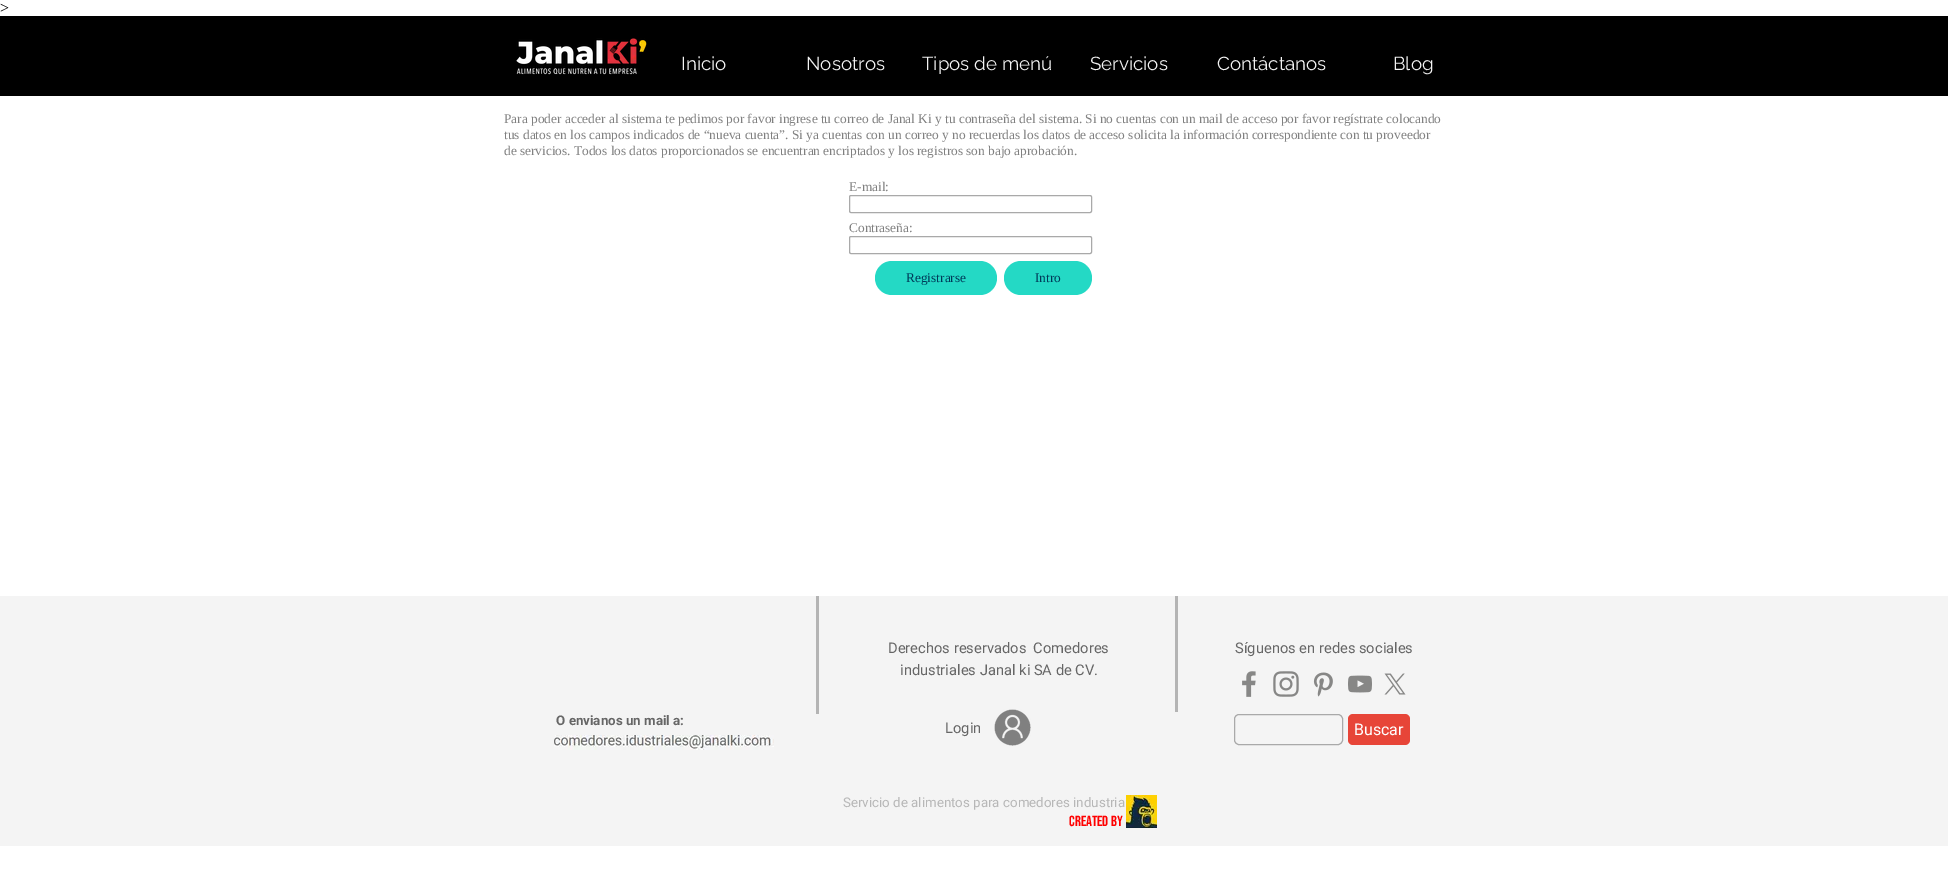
%!PS-Adobe-3.0
%%BoundingBox: 0 0 1948 892
%%LanguageLevel: 3
%%Pages: 1
%%EndComments
%%BeginProlog
/setink { dup -16 bitshift 255 div exch dup -8 bitshift 255 and 255 div exch 255 and 255 div setrgbcolor } def
/usefont { [ exch dup neg 0 0 3 -1 roll 0 0 ] selectfont } def
/rrect { 5 dict begin { /r /h /w /y /x } { exch def } forall
  x r add y moveto x w add y 2 copy h add r arct x w add y h add x 1 index r arct
  x y h add x y r arct x y 2 copy exch w add exch r arct closepath end } def
/drawimage { 5 dict begin { /h /w /y /x /name } { exch def } forall
  gsave x y translate w h scale
  w h 8 [w 0 0 h 0 0] name (r) file false 3 colorimage grestore end } def
%%EndProlog
%%BeginSetup
<< /PageSize [1948 892] >> setpagedevice
%%EndSetup
%%Page: 1 1
0 892 translate 1 -1 scale
4 setmiterlimit
16#FFFFFF setink
0 0 1948 892 rectfill
/LiberationSerif-Regular 16 usefont
16#000000 setink
0 13 moveto (>) show
0 16 1948 80 rectfill
(img1.raw) 516 38 131 37 drawimage
/Raleway-Thin 18.75 usefont
16#F3F3F3 setink
[
    [(Inicio) 681 70]
    [(Nosotros) 806 70]
    [(Tipos de menú) 922 70]
    [(Servicios) 1090 70]
    [(Contáctanos) 1217 70]
    [(Blog) 1393 70]
] { aload pop moveto show } forall
/LiberationSerif-Regular 13.33 usefont
16#808080 setink
[
    [(Para poder acceder al sistema te pedimos por favor ingrese tu correo de Janal Ki y tu contraseña del sistema. Si no cuentas con un mail de acceso por favor regístrate colocando) 504 123]
    [(tus datos en los campos indicados de “nueva cuenta”. Si ya cuentas con un correo y no recuerdas los datos de acceso solicita la información correspondiente con tu proveedor) 504 139]
    [(de servicios. Todos los datos proporcionados se encuentran encriptados y los registros son bajo aprobación.) 504 155]
    [(E-mail:) 849 191]
] { aload pop moveto show } forall
16#A9A9A9 setink
849.5 195.5 242 17 1.5 rrect stroke
16#808080 setink
849 232 moveto (Contraseña:) show
16#A9A9A9 setink
849.5 236.5 242 17 1.5 rrect stroke
16#24D9C5 setink
875 261 122 34 17 rrect fill
16#003A59 setink
906 282 moveto (Registrarse) show
16#24D9C5 setink
1004 261 88 34 17 rrect fill
16#003A59 setink
1035 282 moveto (Intro) show
16#F4F4F4 setink
0 596 1948 250 rectfill
16#B4B4B4 setink
816 596 3 118 rectfill
/Roboto-Regular 14.7 usefont
16#666666 setink
888 653 moveto (Derechos reservados  Comedores) show
900 675 moveto (industriales Janal ki SA de CV.) show
16#B4B4B4 setink
1175 596 3 116 rectfill
16#666666 setink
1235 653 moveto (Síguenos en redes sociales) show
(img2.raw) 1242 671 14 26 drawimage
(img3.raw) 1273 671 26 26 drawimage
(img4.raw) 1313 672 20 25 drawimage
(img5.raw) 1348 675 24 18 drawimage
(img6.raw) 1384 673 22 22 drawimage
/Roboto-Bold 13.33 usefont
556 725 moveto (O envianos un mail a:) show
(img7.raw) 994 709 37 37 drawimage
/Roboto-Regular 14.7 usefont
945 733 moveto (Login) show
16#A9A9A9 setink
1234.5 714.5 108 30 4.5 rrect stroke
16#E74538 setink
1348 714 62 31 5 rrect fill
/Roboto-Regular 16 usefont
16#FFFFFF setink
1354 735 moveto (Buscar) show
(img8.raw) 554 735 220 15 drawimage
/Roboto-Regular 13.33 usefont
16#B7B7B7 setink
843 807 moveto (Servicio de alimentos para comedores industria) show
/BebasNeue-Regular 14.7 usefont
16#FF0000 setink
1069 826 moveto (Created by) show
(img9.raw) 1126 795 31 33 drawimage
showpage
%%EOF
